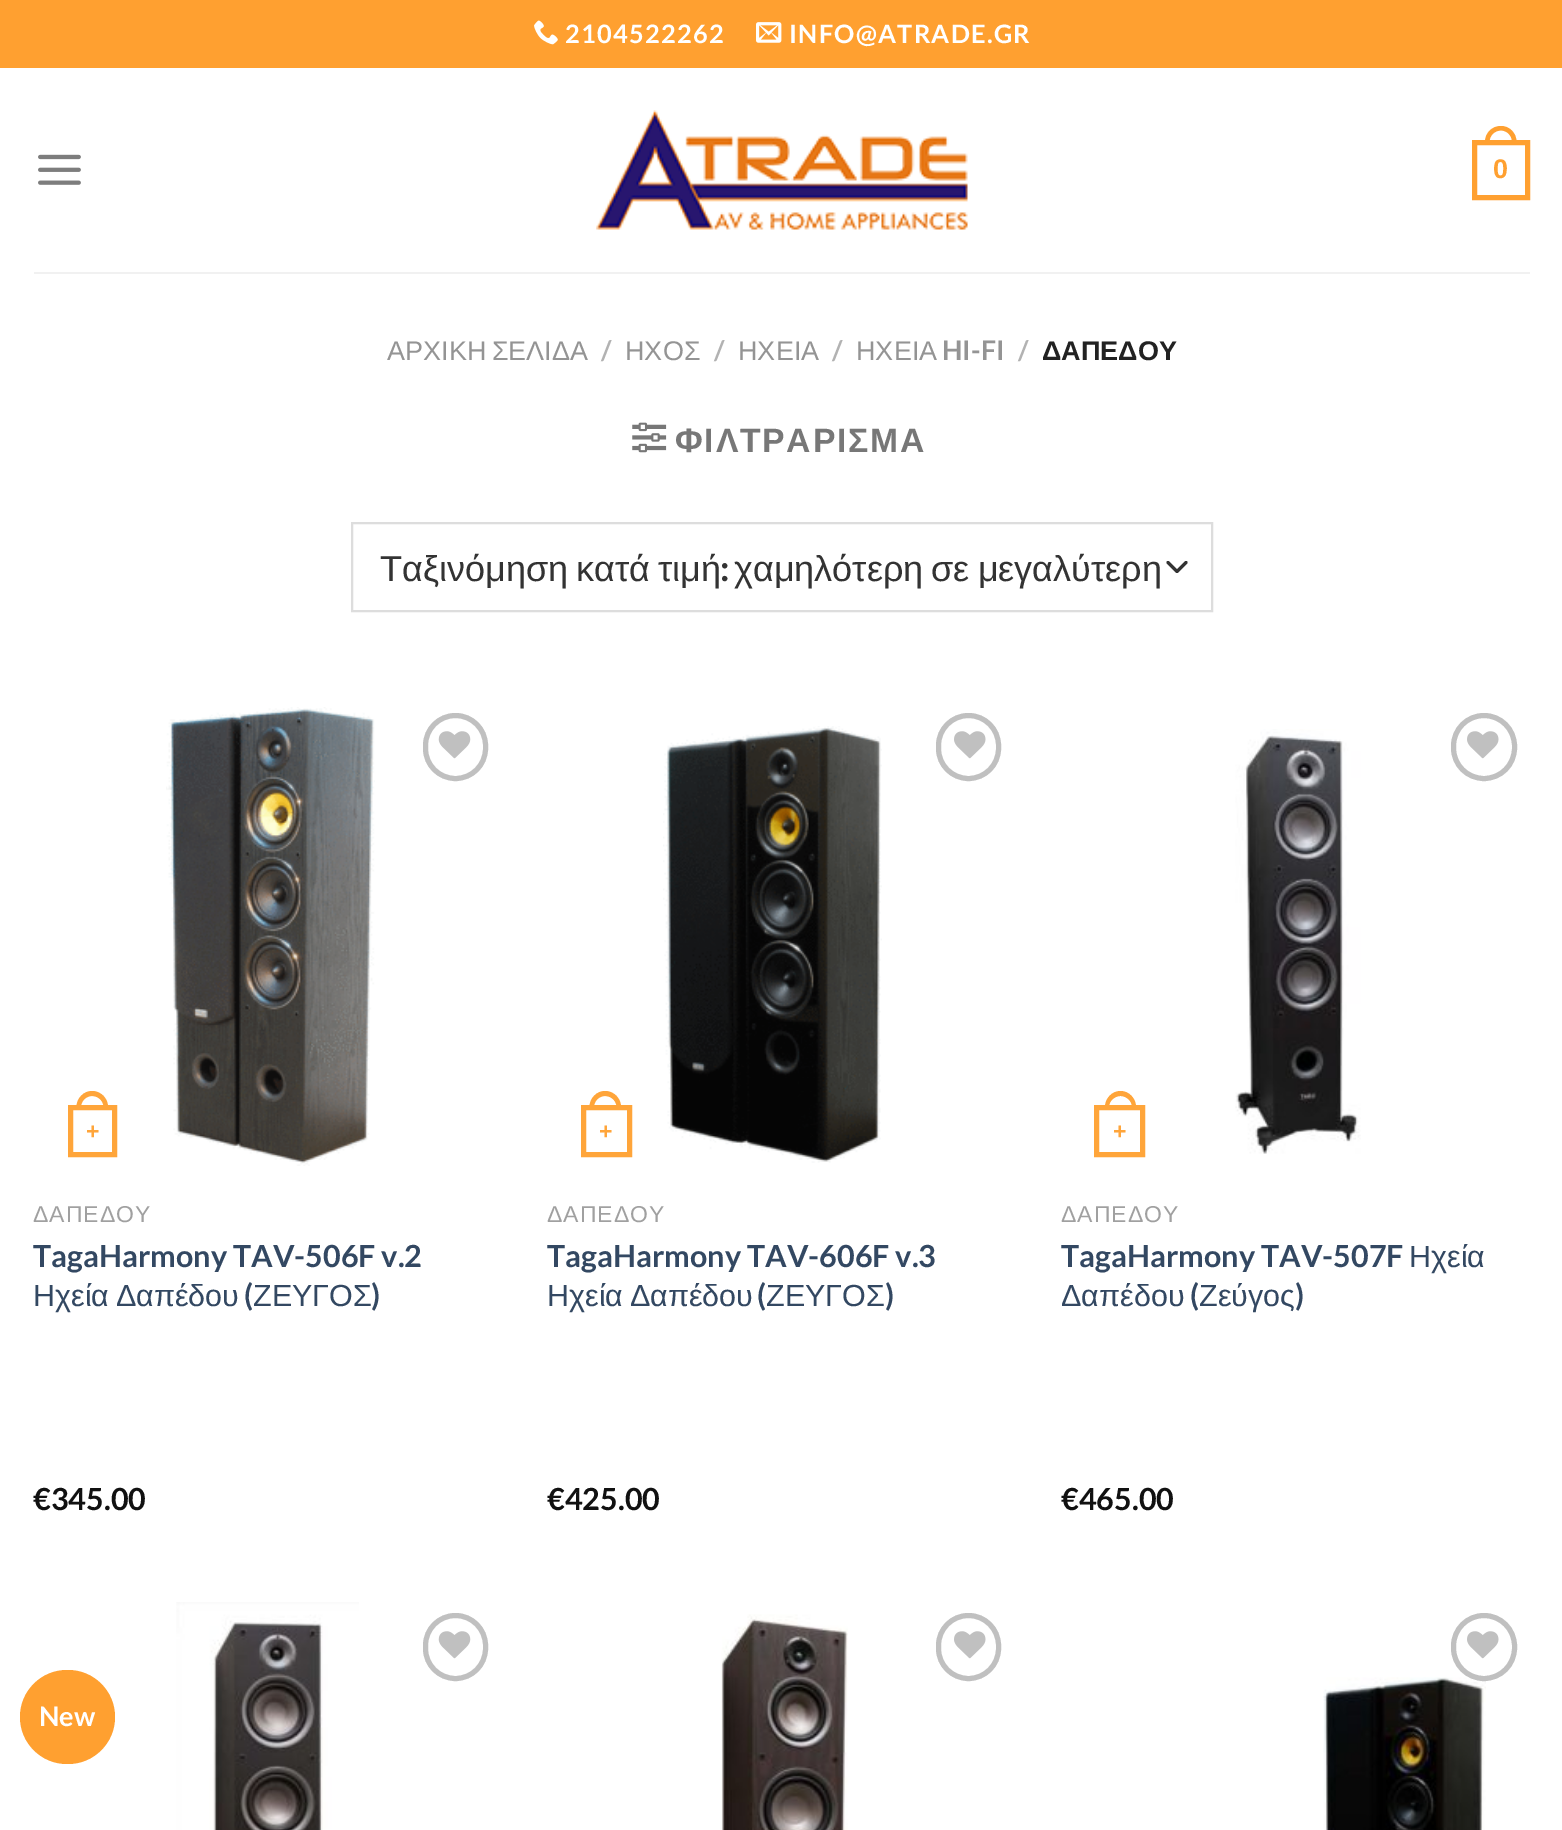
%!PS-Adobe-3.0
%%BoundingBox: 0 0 1562 1830
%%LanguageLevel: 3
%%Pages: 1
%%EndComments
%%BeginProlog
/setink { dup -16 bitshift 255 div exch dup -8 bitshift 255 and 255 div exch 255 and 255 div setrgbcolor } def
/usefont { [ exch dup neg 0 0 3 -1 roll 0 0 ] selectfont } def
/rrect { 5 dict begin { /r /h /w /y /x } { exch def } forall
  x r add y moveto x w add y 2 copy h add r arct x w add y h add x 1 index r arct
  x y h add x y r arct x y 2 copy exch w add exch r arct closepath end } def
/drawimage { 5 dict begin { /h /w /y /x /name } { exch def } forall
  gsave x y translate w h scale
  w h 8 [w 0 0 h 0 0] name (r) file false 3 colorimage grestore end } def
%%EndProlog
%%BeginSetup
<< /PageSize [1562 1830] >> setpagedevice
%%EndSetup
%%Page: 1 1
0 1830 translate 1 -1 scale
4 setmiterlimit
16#FFFFFF setink
0 0 1562 1830 rectfill
16#FFA030 setink
0 0 1562 68 rectfill
(img1.raw) 534 20 24 25 drawimage
/Lato-Bold 25.4 usefont
16#FFFFFF setink
565 43 moveto 1.25 0 (2104522262) ashow
(img2.raw) 756 22 26 21 drawimage
789 43 moveto 1.25 0 (INFO@ATRADE.GR) ashow
(img3.raw) 38 154 43 31 drawimage
(img4.raw) 596 110 372 120 drawimage
16#FFA030 setink
5 setlinewidth
1474.5 142.5 53 55 rectstroke
1501 126 moveto 1509.5 126 1516.5 133 1516.5 142 curveto 1516.5 144 lineto 1485 144 lineto 1485 142 lineto 1485 133 1492 126 1501 126 curveto closepath 1501 130.5 moveto 1507 130.5 1512 135.5 1512 142 curveto 1512 144 lineto 1489.5 144 lineto 1489.5 142 lineto 1489.5 135.5 1494.5 130.5 1501 130.5 curveto closepath eofill
/LiberationSans-Bold 27 usefont
1493 178 moveto (0) show
16#F1F1F1 setink
34 272 1496 2 rectfill
/LiberationSans-Regular 27 usefont
16#949494 setink
387 360 moveto -2 0 32 (ΑΡΧΙΚΗ ΣΕΛΙΔΑ) widthshow
/Lato-Bold 27 usefont
16#B2B2B2 setink
601 360 moveto (/) show
/LiberationSans-Regular 27 usefont
16#949494 setink
625 360 moveto (ΗΧΟΣ) show
/Lato-Bold 27 usefont
16#B2B2B2 setink
714 360 moveto (/) show
/LiberationSans-Regular 27 usefont
16#949494 setink
738 360 moveto (ΗΧΕΙΑ) show
/Lato-Bold 27 usefont
16#B2B2B2 setink
832 360 moveto (/) show
/LiberationSans-Regular 27 usefont
16#949494 setink
856 360 moveto (ΗΧΕΙΑ) show
/Lato-Bold 27 usefont
942 360 moveto (HI-FI) show
16#B2B2B2 setink
1018 360 moveto (/) show
/LiberationSans-Bold 27 usefont
16#222222 setink
1042 360 moveto (ΔΑΠΕΔΟΥ) show
(img5.raw) 632 422 35 31 drawimage
/LiberationSans-Bold 33.75 usefont
16#777777 setink
675 452 moveto 1.75 0 (ΦΙΛΤΡΑΡΙΣΜΑ) ashow
16#333333 setink
3 setlinewidth
1 setlinecap
1 setlinejoin
1168 562.5 moveto 1177 571.5 lineto 1186 562.5 lineto stroke
16#DDDDDD setink
2 setlinewidth
0 setlinecap
0 setlinejoin
352 523 860 88 rectstroke
/LiberationSans-Regular 36 usefont
16#333333 setink
380 581 moveto -2 0 32 (Ταξινόμηση κατά τιμή) widthshow
/Lato-Bold 36 usefont
720 581 moveto (:) show
/LiberationSans-Regular 36 usefont
734 581 moveto -2 0 32 (χαμηλότερη σε μεγαλύτερη) widthshow
(img6.raw) 166 707 209 459 drawimage
16#C0C0C0 setink
5 setlinewidth
425.5 715.5 60 63 30 rrect stroke
(img7.raw) 438 731 33 28 drawimage
16#FFA53A setink
70.5 1107.5 44 47 rectstroke
92 1091 moveto 101 1091 108 1098.5 108 1107 curveto 108 1109 lineto 76.5 1109 lineto 76.5 1107 lineto 76.5 1098.5 83.5 1091 92 1091 curveto closepath 92 1096 moveto 98.5 1096 103.5 1101 103.5 1107 curveto 103.5 1109 lineto 81 1109 lineto 81 1107 lineto 81 1101 86 1096 92 1096 curveto closepath eofill
/LiberationSans-Bold 23 usefont
86 1139 moveto (+) show
/LiberationSans-Regular 23 usefont
16#A0A0A0 setink
33 1222 moveto 1 0 (ΔΑΠΕΔΟΥ) ashow
/Lato-Bold 30.5 usefont
16#334862 setink
33 1267 moveto (TagaHarmony TAV-506F v.2) show
/LiberationSans-Regular 30.5 usefont
33 1306 moveto -2 0 32 (Ηχεία Δαπέδου) widthshow
/Lato-Bold 30.5 usefont
244 1306 moveto (\() show
/LiberationSans-Regular 30.5 usefont
253 1306 moveto (ΖΕΥΓΟΣ) show
/Lato-Bold 30.5 usefont
371 1306 moveto (\)) show
16#111111 setink
33 1510 moveto (€345.00) show
16#FFA53A setink
583.5 1107.5 46 47 rectstroke
605 1091 moveto 614 1091 621 1098.5 621 1107 curveto 621 1109 lineto 589.5 1109 lineto 589.5 1107 lineto 589.5 1098.5 596.5 1091 605 1091 curveto closepath 605 1096 moveto 611.5 1096 616.5 1101 616.5 1107 curveto 616.5 1109 lineto 594 1109 lineto 594 1107 lineto 594 1101 599 1096 605 1096 curveto closepath eofill
/LiberationSans-Bold 23 usefont
599 1139 moveto (+) show
(img8.raw) 663 726 219 437 drawimage
16#C0C0C0 setink
938.5 715.5 60 63 30 rrect stroke
(img9.raw) 954 731 32 28 drawimage
/LiberationSans-Regular 23 usefont
16#A0A0A0 setink
547 1222 moveto 1 0 (ΔΑΠΕΔΟΥ) ashow
/Lato-Bold 30.5 usefont
16#334862 setink
547 1267 moveto (TagaHarmony TAV-606F v.3) show
/LiberationSans-Regular 30.5 usefont
547 1306 moveto -2 0 32 (Ηχεία Δαπέδου) widthshow
/Lato-Bold 30.5 usefont
757 1306 moveto (\() show
/LiberationSans-Regular 30.5 usefont
766 1306 moveto (ΖΕΥΓΟΣ) show
/Lato-Bold 30.5 usefont
885 1306 moveto (\)) show
16#111111 setink
547 1510 moveto (€425.00) show
16#FFA53A setink
1096.5 1107.5 46 47 rectstroke
1120.5 1091 moveto 1129 1091 1136 1098.5 1136 1107 curveto 1136 1109 lineto 1105 1109 lineto 1105 1107 lineto 1105 1098.5 1112 1091 1120.5 1091 curveto closepath 1120.5 1096 moveto 1126.5 1096 1132 1101 1132 1107 curveto 1132 1109 lineto 1109 1109 lineto 1109 1107 lineto 1109 1101 1114.5 1096 1120.5 1096 curveto closepath eofill
/LiberationSans-Bold 23 usefont
1113 1139 moveto (+) show
(img10.raw) 1235 729 126 425 drawimage
16#C0C0C0 setink
1453.5 715.5 61 63 30.5 rrect stroke
(img9.raw) 1467 731 32 28 drawimage
/LiberationSans-Regular 23 usefont
16#A0A0A0 setink
1061 1222 moveto 1 0 (ΔΑΠΕΔΟΥ) ashow
/Lato-Bold 30.5 usefont
16#334862 setink
1061 1267 moveto (TagaHarmony TAV-507F) show
/LiberationSans-Regular 30.5 usefont
1409 1267 moveto (Ηχεία) show
1061 1306 moveto (Δαπέδου) show
/Lato-Bold 30.5 usefont
1190 1306 moveto (\() show
/LiberationSans-Regular 30.5 usefont
1199 1306 moveto (Ζεύγος) show
/Lato-Bold 30.5 usefont
1295 1306 moveto (\)) show
16#111111 setink
1061 1510 moveto (€465.00) show
16#FFA030 setink
20 1670 95 94 47 rrect fill
/Lato-Bold 27 usefont
16#FFFFFF setink
39 1726 moveto (New) show
(img11.raw) 176 1602 183 228 drawimage
16#C0C0C0 setink
425.5 1615.5 60 63 30 rrect stroke
(img7.raw) 438 1631 33 28 drawimage
(img12.raw) 721 1614 127 216 drawimage
938.5 1615.5 60 63 30 rrect stroke
(img9.raw) 954 1631 32 28 drawimage
(img13.raw) 1323 1677 163 153 drawimage
1453.5 1615.5 61 63 30.5 rrect stroke
(img9.raw) 1467 1631 32 28 drawimage
showpage
%%EOF
